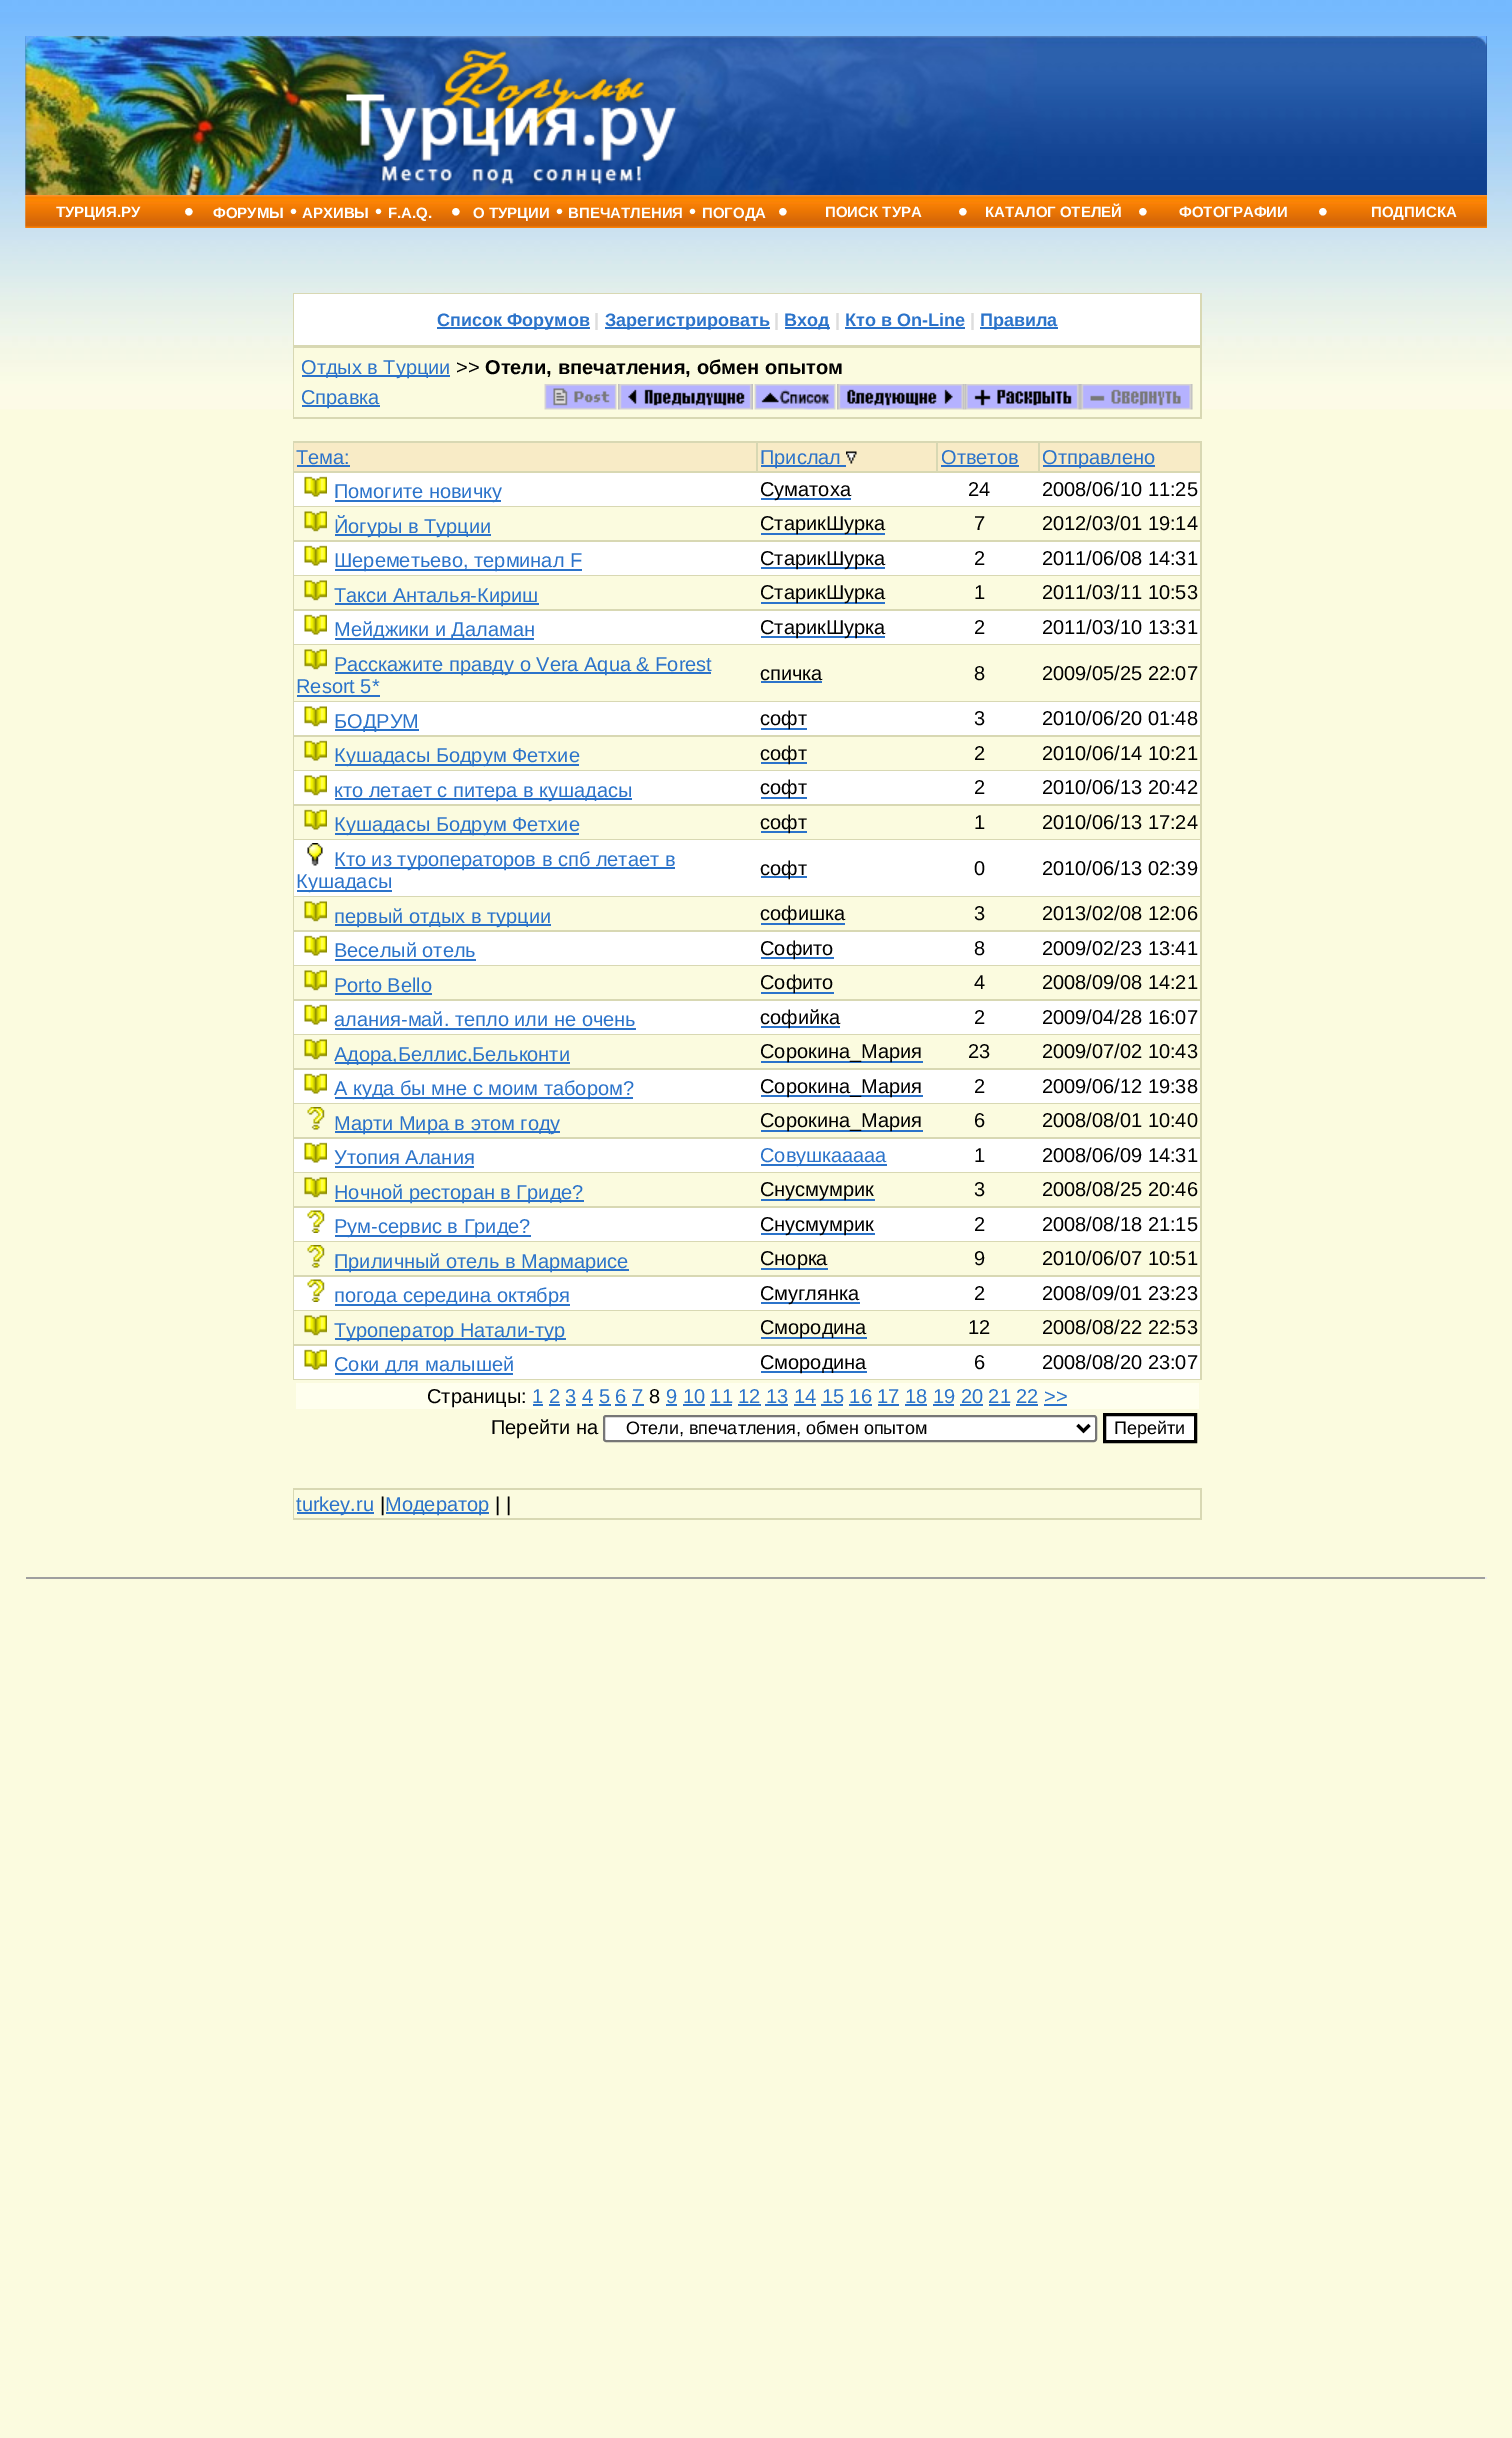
%!PS-Adobe-3.0
%%BoundingBox: 0 0 1512 2438
%%LanguageLevel: 3
%%Pages: 1
%%EndComments
%%BeginProlog
/setink { dup -16 bitshift 255 div exch dup -8 bitshift 255 and 255 div exch 255 and 255 div setrgbcolor } def
/usefont { [ exch dup neg 0 0 3 -1 roll 0 0 ] selectfont } def
/rrect { 5 dict begin { /r /h /w /y /x } { exch def } forall
  x r add y moveto x w add y 2 copy h add r arct x w add y h add x 1 index r arct
  x y h add x y r arct x y 2 copy exch w add exch r arct closepath end } def
/drawimage { 5 dict begin { /h /w /y /x /name } { exch def } forall
  gsave x y translate w h scale
  w h 8 [w 0 0 h 0 0] name (r) file false 3 colorimage grestore end } def
%%EndProlog
%%BeginSetup
<< /PageSize [1512 2438] >> setpagedevice
%%EndSetup
%%Page: 1 1
0 2438 translate 1 -1 scale
4 setmiterlimit
16#FBFBDF setink
0 0 1512 2438 rectfill
(img1.raw) 0 0 1512 410 drawimage
16#134493 setink
1486 36 1 159 rectfill
(img2.raw) 25 36 1462 159 drawimage
(img3.raw) 25 36 1012 159 drawimage
(img4.raw) 342 43 335 143 drawimage
(img5.raw) 1471 36 16 107 drawimage
(img6.raw) 25 195 1462 33 drawimage
(img7.raw) 25 195 1 33 drawimage
/LiberationSans-Bold 15 usefont
16#FFFFFF setink
56 217 moveto (ТУРЦИЯ.РУ) show
/LiberationSans-Regular 28 usefont
184 221 moveto (•) show
/LiberationSans-Bold 15 usefont
213 218 moveto (ФОРУМЫ) show
/LiberationSans-Regular 20 usefont
290 218 moveto (•) show
/LiberationSans-Bold 15 usefont
302 218 moveto (АРХИВЫ) show
/LiberationSans-Regular 20 usefont
375 218 moveto (•) show
/LiberationSans-Bold 15 usefont
388 218 moveto (F.A.Q.) show
/LiberationSans-Regular 28 usefont
451 221 moveto (•) show
/LiberationSans-Bold 15 usefont
473 218 moveto (О ТУРЦИИ) show
/LiberationSans-Regular 20 usefont
556 218 moveto (•) show
/LiberationSans-Bold 15 usefont
568 218 moveto (ВПЕЧАТЛЕНИЯ) show
/LiberationSans-Regular 20 usefont
689 218 moveto (•) show
/LiberationSans-Bold 15 usefont
702 218 moveto (ПОГОДА) show
/LiberationSans-Regular 28 usefont
778 221 moveto (•) show
/LiberationSans-Bold 15 usefont
825 217 moveto (ПОИСК ТУРА) show
/LiberationSans-Regular 28 usefont
958 221 moveto (•) show
/LiberationSans-Bold 15 usefont
985 217 moveto (КАТАЛОГ ОТЕЛЕЙ) show
/LiberationSans-Regular 28 usefont
1138 221 moveto (•) show
/LiberationSans-Bold 15 usefont
1179 217 moveto (ФОТОГРАФИИ) show
/LiberationSans-Regular 28 usefont
1318 221 moveto (•) show
(img8.raw) 1486 195 1 33 drawimage
/LiberationSans-Bold 15 usefont
1371 217 moveto (ПОДПИСКА) show
[
    [293 293 909 126 16#D8D8B3]
    [294 294 906 51 16#FFFFFF]
    [437 327 153 2 16#2B73CA]
] { aload pop setink rectfill } forall
/LiberationSans-Bold 18 usefont
437 326 moveto (Список Форумов) show
16#DDDDDD setink
594 326 moveto (|) show
16#2B73CA setink
605 327 165 2 rectfill
605 326 moveto (Зарегистрировать) show
16#DDDDDD setink
774 326 moveto (|) show
16#2B73CA setink
785 327 45 2 rectfill
784 326 moveto (Вход) show
16#DDDDDD setink
835 326 moveto (|) show
16#2B73CA setink
845 326 moveto (Кто в On-Line) show
845 327 120 2 rectfill
16#DDDDDD setink
970 326 moveto (|) show
16#2B73CA setink
980 327 78 2 rectfill
980 326 moveto (Правила) show
16#FBFBDF setink
294 348 906 69 rectfill
16#2B73CA setink
302 375 148 2 rectfill
/LiberationSans-Regular 20 usefont
301 374 moveto (Отдых в Турции) show
16#000000 setink
456 374 moveto (>>) show
/LiberationSans-Bold 20 usefont
485 374 moveto (Отели, впечатления, обмен опытом) show
16#2B73CA setink
302 405 78 2 rectfill
/LiberationSans-Regular 20 usefont
301 404 moveto (Справка) show
(img9.raw) 544 384 73 26 drawimage
(img10.raw) 618 384 135 26 drawimage
(img11.raw) 754 384 82 26 drawimage
(img12.raw) 837 384 128 26 drawimage
(img13.raw) 964 384 116 26 drawimage
(img14.raw) 1080 384 113 26 drawimage
16#D8D8B3 setink
293 441 909 939 rectfill
16#F8EBC6 setink
294 443 462 28 rectfill
16#2B73CA setink
296 464 moveto (Тема:) show
[
    [297 465 53 2 16#2B73CA]
    [758 443 178 28 16#F8EBC6]
    [761 465 85 2 16#2B73CA]
] { aload pop setink rectfill } forall
760 464 moveto (Прислал) show
(img15.raw) 846 451 11 13 drawimage
16#F8EBC6 setink
938 443 100 28 rectfill
16#2B73CA setink
941 464 moveto (Ответов) show
[
    [941 465 78 2 16#2B73CA]
    [1040 443 160 28 16#F8EBC6]
    [1043 465 112 2 16#2B73CA]
] { aload pop setink rectfill } forall
1042 464 moveto (Отправлено) show
16#FFFFFF setink
294 473 906 33 rectfill
(img16.raw) 304 476 23 21 drawimage
16#2B73CA setink
335 500 166 2 rectfill
334 498 moveto (Помогите новичку) show
761 498 90 2 rectfill
16#000000 setink
[
    [(Суматоха) 760 496]
    [(24) 968 496]
    [(2008/06/10 11:25) 1042 496]
] { aload pop moveto show } forall
16#FBFBDF setink
294 507 906 33 rectfill
(img17.raw) 304 511 23 21 drawimage
16#2B73CA setink
335 534 156 2 rectfill
334 533 moveto (Йогуры в Турции) show
761 533 124 2 rectfill
16#000000 setink
[
    [(СтарикШурка) 760 530]
    [(7) 974 530]
    [(2012/03/01 19:14) 1042 530]
] { aload pop moveto show } forall
16#FFFFFF setink
294 542 906 33 rectfill
(img16.raw) 304 545 23 21 drawimage
16#2B73CA setink
335 569 247 2 rectfill
334 567 moveto (Шереметьево, терминал F) show
761 567 124 2 rectfill
16#000000 setink
[
    [(СтарикШурка) 760 565]
    [(2) 974 565]
    [(2011/06/08 14:31) 1042 565]
] { aload pop moveto show } forall
16#FBFBDF setink
294 576 906 33 rectfill
(img17.raw) 304 580 23 21 drawimage
16#2B73CA setink
335 603 204 2 rectfill
334 602 moveto (Такси Анталья-Кириш) show
761 602 124 2 rectfill
16#000000 setink
[
    [(СтарикШурка) 760 599]
    [(1) 974 599]
    [(2011/03/11 10:53) 1042 599]
] { aload pop moveto show } forall
16#FFFFFF setink
294 611 906 33 rectfill
(img16.raw) 304 614 23 21 drawimage
16#2B73CA setink
335 638 199 2 rectfill
334 636 moveto (Мейджики и Даламан) show
761 636 124 2 rectfill
16#000000 setink
[
    [(СтарикШурка) 760 634]
    [(2) 974 634]
    [(2011/03/10 13:31) 1042 634]
] { aload pop moveto show } forall
16#FBFBDF setink
294 645 906 56 rectfill
(img17.raw) 304 649 23 21 drawimage
16#2B73CA setink
335 672 376 2 rectfill
334 671 moveto (Расскажите правду о Vera Aqua & Forest) show
296 693 moveto (Resort 5*) show
297 695 83 2 rectfill
16#000000 setink
760 680 moveto (спичка) show
16#2B73CA setink
761 681 61 2 rectfill
16#000000 setink
974 680 moveto (8) show
1042 680 moveto (2009/05/25 22:07) show
16#FFFFFF setink
294 702 906 33 rectfill
(img18.raw) 304 706 23 21 drawimage
16#2B73CA setink
335 729 84 2 rectfill
334 728 moveto (БОДРУМ) show
761 728 46 2 rectfill
16#000000 setink
[
    [(софт) 760 725]
    [(3) 974 725]
    [(2010/06/20 01:48) 1042 725]
] { aload pop moveto show } forall
16#FBFBDF setink
294 737 906 33 rectfill
(img19.raw) 304 740 23 21 drawimage
16#2B73CA setink
335 764 244 2 rectfill
334 762 moveto (Кушадасы Бодрум Фетхие) show
761 762 46 2 rectfill
16#000000 setink
[
    [(софт) 760 760]
    [(2) 974 760]
    [(2010/06/14 10:21) 1042 760]
] { aload pop moveto show } forall
16#FFFFFF setink
294 771 906 33 rectfill
(img18.raw) 304 775 23 21 drawimage
16#2B73CA setink
335 798 297 2 rectfill
334 797 moveto (кто летает с питера в кушадасы) show
761 797 46 2 rectfill
16#000000 setink
[
    [(софт) 760 794]
    [(2) 974 794]
    [(2010/06/13 20:42) 1042 794]
] { aload pop moveto show } forall
16#FBFBDF setink
294 806 906 33 rectfill
(img19.raw) 304 809 23 21 drawimage
16#2B73CA setink
335 833 244 2 rectfill
334 831 moveto (Кушадасы Бодрум Фетхие) show
761 831 46 2 rectfill
16#000000 setink
[
    [(софт) 760 829]
    [(1) 974 829]
    [(2010/06/13 17:24) 1042 829]
] { aload pop moveto show } forall
16#FFFFFF setink
294 840 906 56 rectfill
(img20.raw) 307 843 16 23 drawimage
16#2B73CA setink
335 867 340 2 rectfill
334 866 moveto (Кто из туроператоров в спб летает в) show
297 890 95 2 rectfill
296 888 moveto (Кушадасы) show
761 876 46 2 rectfill
16#000000 setink
[
    [(софт) 760 875]
    [(0) 974 875]
    [(2010/06/13 02:39) 1042 875]
] { aload pop moveto show } forall
16#FBFBDF setink
294 897 906 33 rectfill
(img17.raw) 304 901 23 21 drawimage
16#2B73CA setink
335 924 216 2 rectfill
334 923 moveto (первый отдых в турции) show
761 923 84 2 rectfill
16#000000 setink
[
    [(софишка) 760 920]
    [(3) 974 920]
    [(2013/02/08 12:06) 1042 920]
] { aload pop moveto show } forall
16#FFFFFF setink
294 932 906 33 rectfill
(img16.raw) 304 935 23 21 drawimage
16#2B73CA setink
334 957 moveto (Веселый отель) show
335 959 141 2 rectfill
761 957 73 2 rectfill
16#000000 setink
[
    [(Софито) 760 955]
    [(8) 974 955]
    [(2009/02/23 13:41) 1042 955]
] { aload pop moveto show } forall
16#FBFBDF setink
294 966 906 33 rectfill
(img17.raw) 304 970 23 21 drawimage
16#2B73CA setink
334 992 moveto (Porto Bello) show
335 993 97 2 rectfill
761 992 73 2 rectfill
16#000000 setink
[
    [(Софито) 760 989]
    [(4) 974 989]
    [(2008/09/08 14:21) 1042 989]
] { aload pop moveto show } forall
16#FFFFFF setink
294 1001 906 33 rectfill
(img16.raw) 304 1004 23 21 drawimage
16#2B73CA setink
334 1026 moveto (алания-май. тепло или не очень) show
335 1028 301 2 rectfill
761 1026 79 2 rectfill
16#000000 setink
[
    [(софийка) 760 1024]
    [(2) 974 1024]
    [(2009/04/28 16:07) 1042 1024]
] { aload pop moveto show } forall
16#FBFBDF setink
294 1035 906 33 rectfill
(img17.raw) 304 1039 23 21 drawimage
16#2B73CA setink
335 1062 235 2 rectfill
334 1061 moveto (Адора,Беллис,Бельконти) show
761 1061 162 2 rectfill
16#000000 setink
[
    [(Сорокина_Мария) 760 1058]
    [(23) 968 1058]
    [(2009/07/02 10:43) 1042 1058]
] { aload pop moveto show } forall
16#FFFFFF setink
294 1070 906 33 rectfill
(img16.raw) 304 1073 23 21 drawimage
16#2B73CA setink
335 1097 298 2 rectfill
334 1095 moveto (А куда бы мне с моим табором?) show
761 1095 162 2 rectfill
16#000000 setink
[
    [(Сорокина_Мария) 760 1093]
    [(2) 974 1093]
    [(2009/06/12 19:38) 1042 1093]
] { aload pop moveto show } forall
16#FBFBDF setink
294 1104 906 33 rectfill
(img21.raw) 307 1107 18 23 drawimage
16#2B73CA setink
335 1131 225 2 rectfill
334 1130 moveto (Марти Мира в этом году) show
761 1130 162 2 rectfill
16#000000 setink
[
    [(Сорокина_Мария) 760 1127]
    [(6) 974 1127]
    [(2008/08/01 10:40) 1042 1127]
] { aload pop moveto show } forall
16#FFFFFF setink
294 1139 906 33 rectfill
(img16.raw) 304 1142 23 21 drawimage
16#2B73CA setink
334 1164 moveto (Утопия Алания) show
335 1166 139 2 rectfill
761 1164 126 2 rectfill
760 1162 moveto (Совушкааааа) show
16#000000 setink
974 1162 moveto (1) show
1042 1162 moveto (2008/06/09 14:31) show
16#FBFBDF setink
294 1173 906 33 rectfill
(img17.raw) 304 1177 23 21 drawimage
16#2B73CA setink
335 1200 249 2 rectfill
334 1199 moveto (Ночной ресторан в Гриде?) show
761 1199 114 2 rectfill
16#000000 setink
[
    [(Снусмумрик) 760 1196]
    [(3) 974 1196]
    [(2008/08/25 20:46) 1042 1196]
] { aload pop moveto show } forall
16#FFFFFF setink
294 1208 906 33 rectfill
(img22.raw) 307 1210 18 23 drawimage
16#2B73CA setink
335 1235 196 2 rectfill
334 1233 moveto (Рум-сервис в Гриде?) show
761 1233 114 2 rectfill
16#000000 setink
[
    [(Снусмумрик) 760 1231]
    [(2) 974 1231]
    [(2008/08/18 21:15) 1042 1231]
] { aload pop moveto show } forall
16#FBFBDF setink
294 1242 906 33 rectfill
(img21.raw) 307 1245 18 23 drawimage
16#2B73CA setink
335 1269 294 2 rectfill
334 1268 moveto (Приличный отель в Мармарисе) show
761 1268 67 2 rectfill
16#000000 setink
[
    [(Снорка) 760 1265]
    [(9) 974 1265]
    [(2010/06/07 10:51) 1042 1265]
] { aload pop moveto show } forall
16#FFFFFF setink
294 1277 906 33 rectfill
(img22.raw) 307 1279 18 23 drawimage
16#2B73CA setink
335 1304 235 2 rectfill
334 1302 moveto (погода середина октября) show
761 1302 99 2 rectfill
16#000000 setink
[
    [(Смуглянка) 760 1300]
    [(2) 974 1300]
    [(2008/09/01 23:23) 1042 1300]
] { aload pop moveto show } forall
16#FBFBDF setink
294 1311 906 33 rectfill
(img17.raw) 304 1315 23 21 drawimage
16#2B73CA setink
335 1338 231 2 rectfill
334 1337 moveto (Туроператор Натали-тур) show
761 1337 106 2 rectfill
16#000000 setink
[
    [(Смородина) 760 1334]
    [(12) 968 1334]
    [(2008/08/22 22:53) 1042 1334]
] { aload pop moveto show } forall
16#FFFFFF setink
294 1346 906 33 rectfill
(img16.raw) 304 1349 23 21 drawimage
16#2B73CA setink
335 1373 178 2 rectfill
334 1371 moveto (Соки для малышей) show
761 1371 106 2 rectfill
16#000000 setink
[
    [(Смородина) 760 1369]
    [(6) 974 1369]
    [(2008/08/20 23:07) 1042 1369]
] { aload pop moveto show } forall
16#FFFFEE setink
296 1383 903 26 rectfill
16#000000 setink
427 1403 moveto (Страницы:) show
16#2B73CA setink
532 1403 moveto (1 2 3 4 5 6 7) show
[
    [533 1404 10 2 16#2B73CA]
    [549 1404 11 2 16#2B73CA]
    [566 1404 10 2 16#2B73CA]
    [582 1404 11 2 16#2B73CA]
    [599 1404 12 2 16#2B73CA]
    [615 1404 12 2 16#2B73CA]
    [632 1404 12 2 16#2B73CA]
] { aload pop setink rectfill } forall
16#000000 setink
649 1403 moveto (8) show
16#2B73CA setink
666 1403 moveto (9 10 11 12 13 14 15 16 17 18 19 20 21 22 >>) show
[
    [666 1404 11 2 16#2B73CA]
    [683 1404 22 2 16#2B73CA]
    [710 1404 22 2 16#2B73CA]
    [738 1404 23 2 16#2B73CA]
    [765 1404 23 2 16#2B73CA]
    [794 1404 22 2 16#2B73CA]
    [821 1404 22 2 16#2B73CA]
    [849 1404 23 2 16#2B73CA]
    [878 1404 21 2 16#2B73CA]
    [905 1404 22 2 16#2B73CA]
    [933 1404 21 2 16#2B73CA]
    [960 1404 23 2 16#2B73CA]
    [989 1404 21 2 16#2B73CA]
    [1016 1404 22 2 16#2B73CA]
    [1044 1404 23 2 16#2B73CA]
] { aload pop setink rectfill } forall
16#000000 setink
491 1434 moveto (Перейти на) show
16#FFFFFF setink
604 1416 492 25 2 rrect gsave fill grestore
16#767676 setink
2 setlinewidth
stroke
16#000000 setink
3 setlinewidth
1077.5 1425 moveto 1083.5 1431 lineto 1089.5 1425 lineto stroke
/LiberationSans-Regular 18 usefont
626 1434 moveto (Отели, впечатления, обмен опытом) show
16#FFFFFF setink
1104.5 1414.5 moveto 1195.5 1414.5 lineto 1195.5 1441.5 lineto 1104.5 1441.5 lineto closepath gsave fill grestore
16#000000 setink
stroke
1114 1434 moveto (Перейти) show
[
    [293 1488 909 32 16#D8D8B3]
    [294 1490 906 28 16#FBFBDF]
    [297 1512 77 2 16#2B73CA]
] { aload pop setink rectfill } forall
/LiberationSans-Regular 20 usefont
296 1511 moveto (turkey.ru) show
16#000000 setink
380 1511 moveto (|) show
16#2B73CA setink
386 1512 103 2 rectfill
385 1511 moveto (Модератор) show
16#000000 setink
495 1511 moveto (| |) show
16#9F9F9F setink
26 1577 1461 2 rectfill
16#EEEEEE setink
1485 1577 2 2 rectfill
showpage
%%EOF
